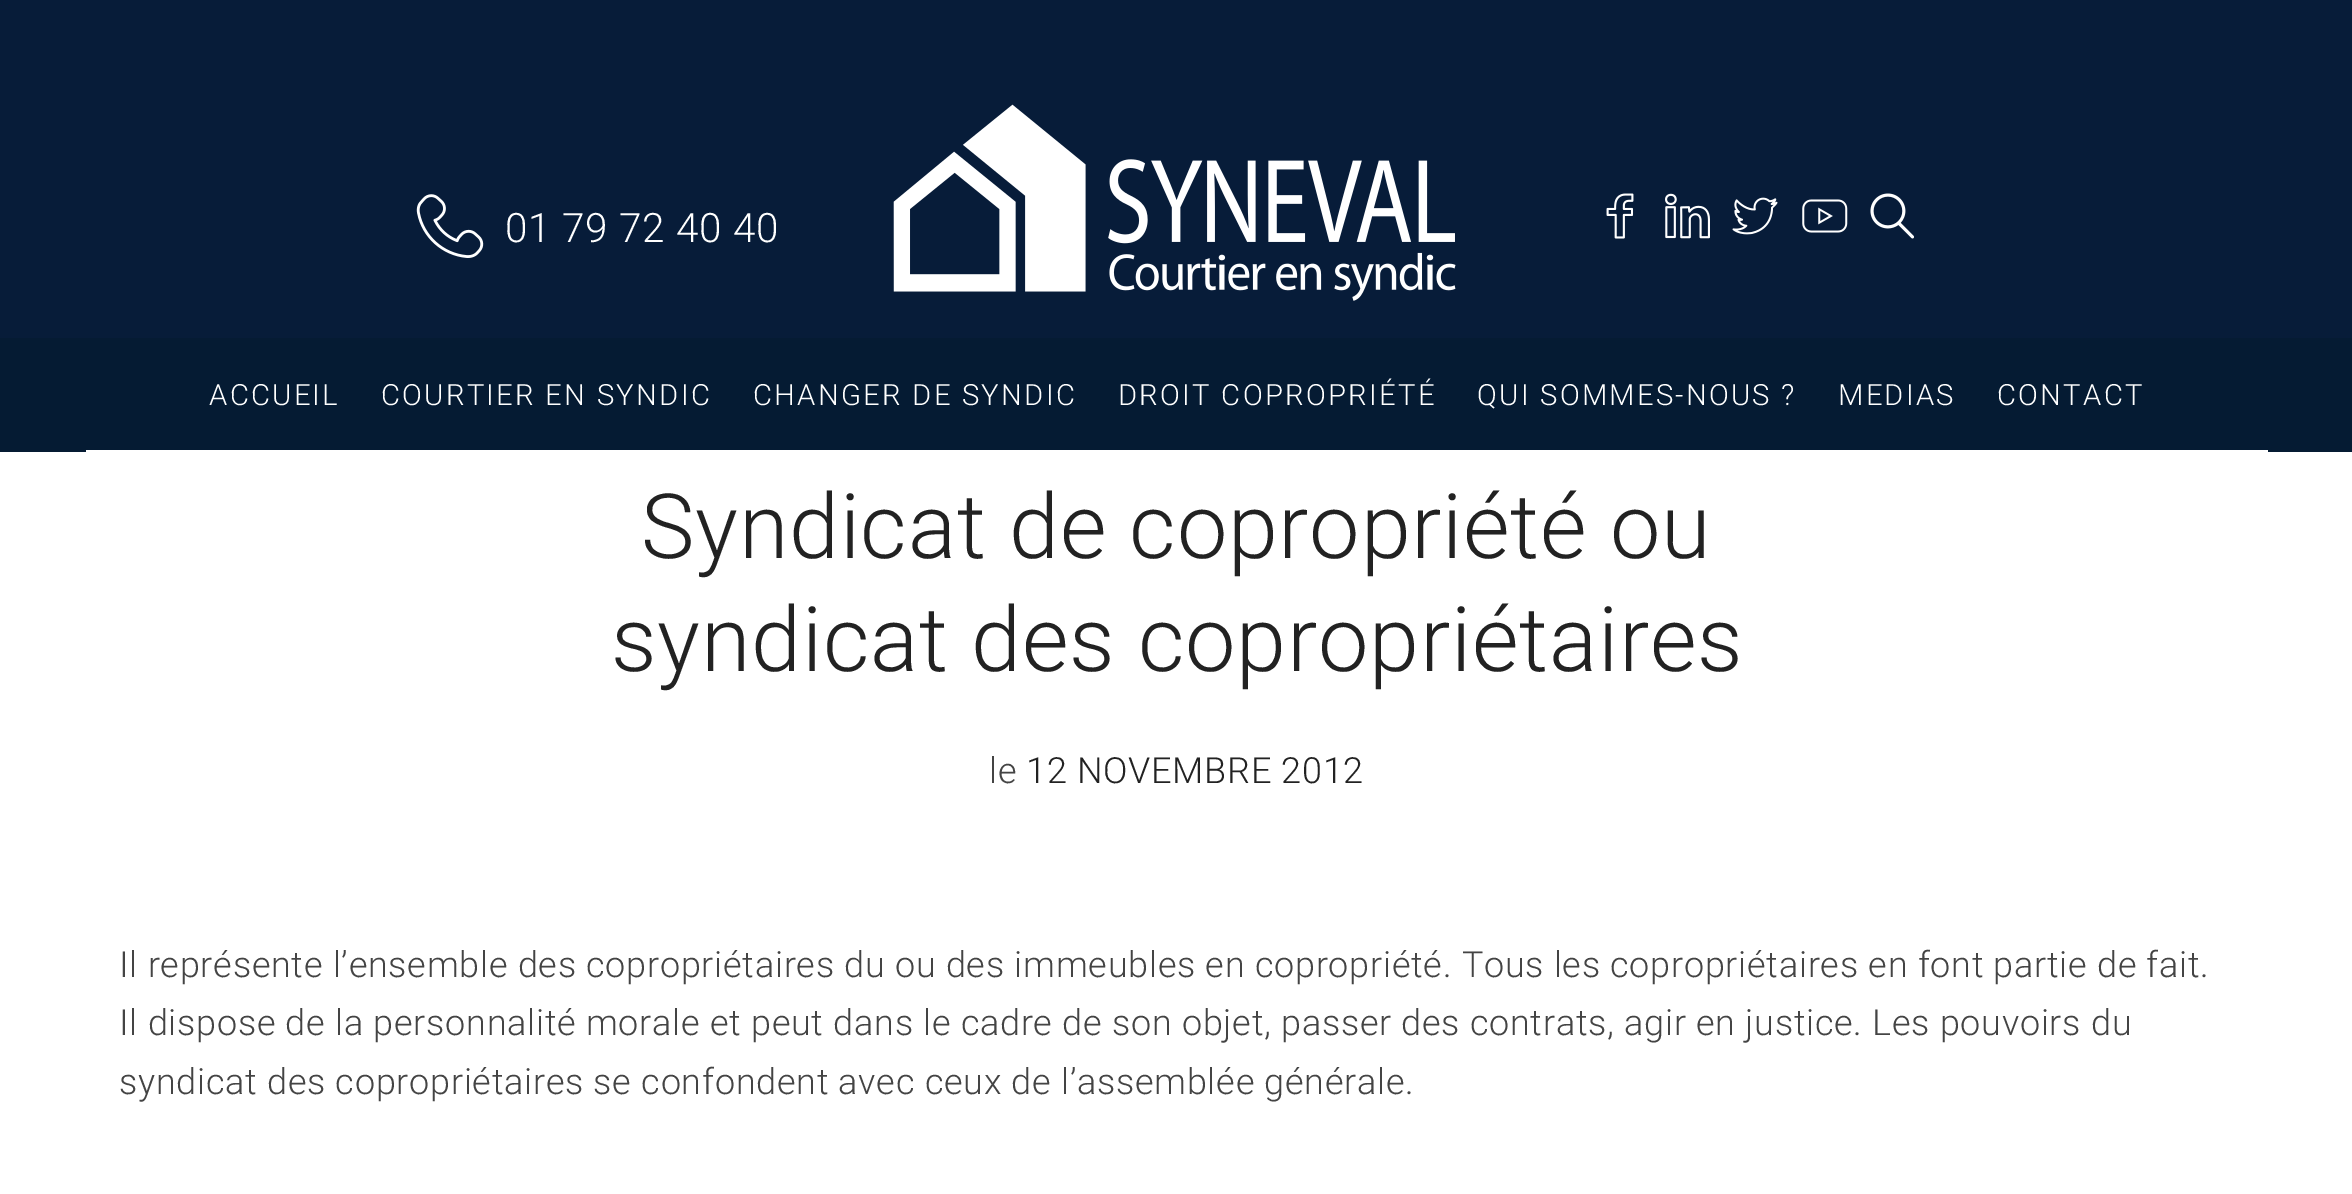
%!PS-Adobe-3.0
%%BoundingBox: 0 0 2352 1194
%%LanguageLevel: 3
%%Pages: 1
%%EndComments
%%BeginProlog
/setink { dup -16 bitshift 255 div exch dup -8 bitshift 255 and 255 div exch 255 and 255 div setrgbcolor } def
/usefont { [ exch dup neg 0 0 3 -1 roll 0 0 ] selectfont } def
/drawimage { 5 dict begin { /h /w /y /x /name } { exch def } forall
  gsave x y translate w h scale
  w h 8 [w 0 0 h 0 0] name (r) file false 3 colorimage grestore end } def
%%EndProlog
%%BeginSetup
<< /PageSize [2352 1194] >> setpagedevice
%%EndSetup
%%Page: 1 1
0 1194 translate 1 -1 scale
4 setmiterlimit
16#FFFFFF setink
0 0 2352 1194 rectfill
16#071C39 setink
0 0 2352 338 rectfill
(img1.raw) 416 194 68 64 drawimage
/Roboto-Light 40.5 usefont
16#FFFFFF setink
505 242 moveto 0.72 0 (01 79 72 40 40) ashow
(img2.raw) 893 104 563 197 drawimage
(img3.raw) 1606 193 28 46 drawimage
(img4.raw) 1665 193 45 46 drawimage
(img5.raw) 1732 197 46 38 drawimage
(img6.raw) 1802 199 46 34 drawimage
(img7.raw) 1870 193 44 46 drawimage
16#051B33 setink
0 338 2352 114 rectfill
/Roboto-Light 29.25 usefont
16#FFFFFF setink
209 405 moveto 2.25 0 (ACCUEIL) ashow
381 405 moveto 2.25 0 (COURTIER EN SYNDIC) ashow
753 405 moveto 2.25 0 (CHANGER DE SYNDIC) ashow
1118 405 moveto 2.25 0 (DROIT COPROPRIÉTÉ) ashow
1477 405 moveto 2.25 0 (QUI SOMMES-NOUS ?) ashow
1838 405 moveto 2.25 0 (MEDIAS) ashow
1997 405 moveto 2.25 0 (CONTACT) ashow
86 450 2182 2 rectfill
/Roboto-Light 90 usefont
16#222222 setink
641 558 moveto 0.72 0 (Syndicat de copropriété ou) ashow
611 671 moveto 0.72 0 (syndicat des copropriétaires) ashow
/Roboto-Light 36 usefont
16#444444 setink
989 783 moveto 0.72 0 (le) ashow
16#222222 setink
1026 783 moveto 0.72 0 (12 NOVEMBRE 2012) ashow
16#444444 setink
119 977 moveto 0.72 0 (Il représente l’ensemble des copropriétaires du ou des immeubles en copropriété. Tous les copropriétaires en font partie de fait.) ashow
119 1035 moveto 0.72 0 (Il dispose de la personnalité morale et peut dans le cadre de son objet, passer des contrats, agir en justice. Les pouvoirs du) ashow
119 1094 moveto 0.72 0 (syndicat des copropriétaires se confondent avec ceux de l’assemblée générale.) ashow
showpage
%%EOF
